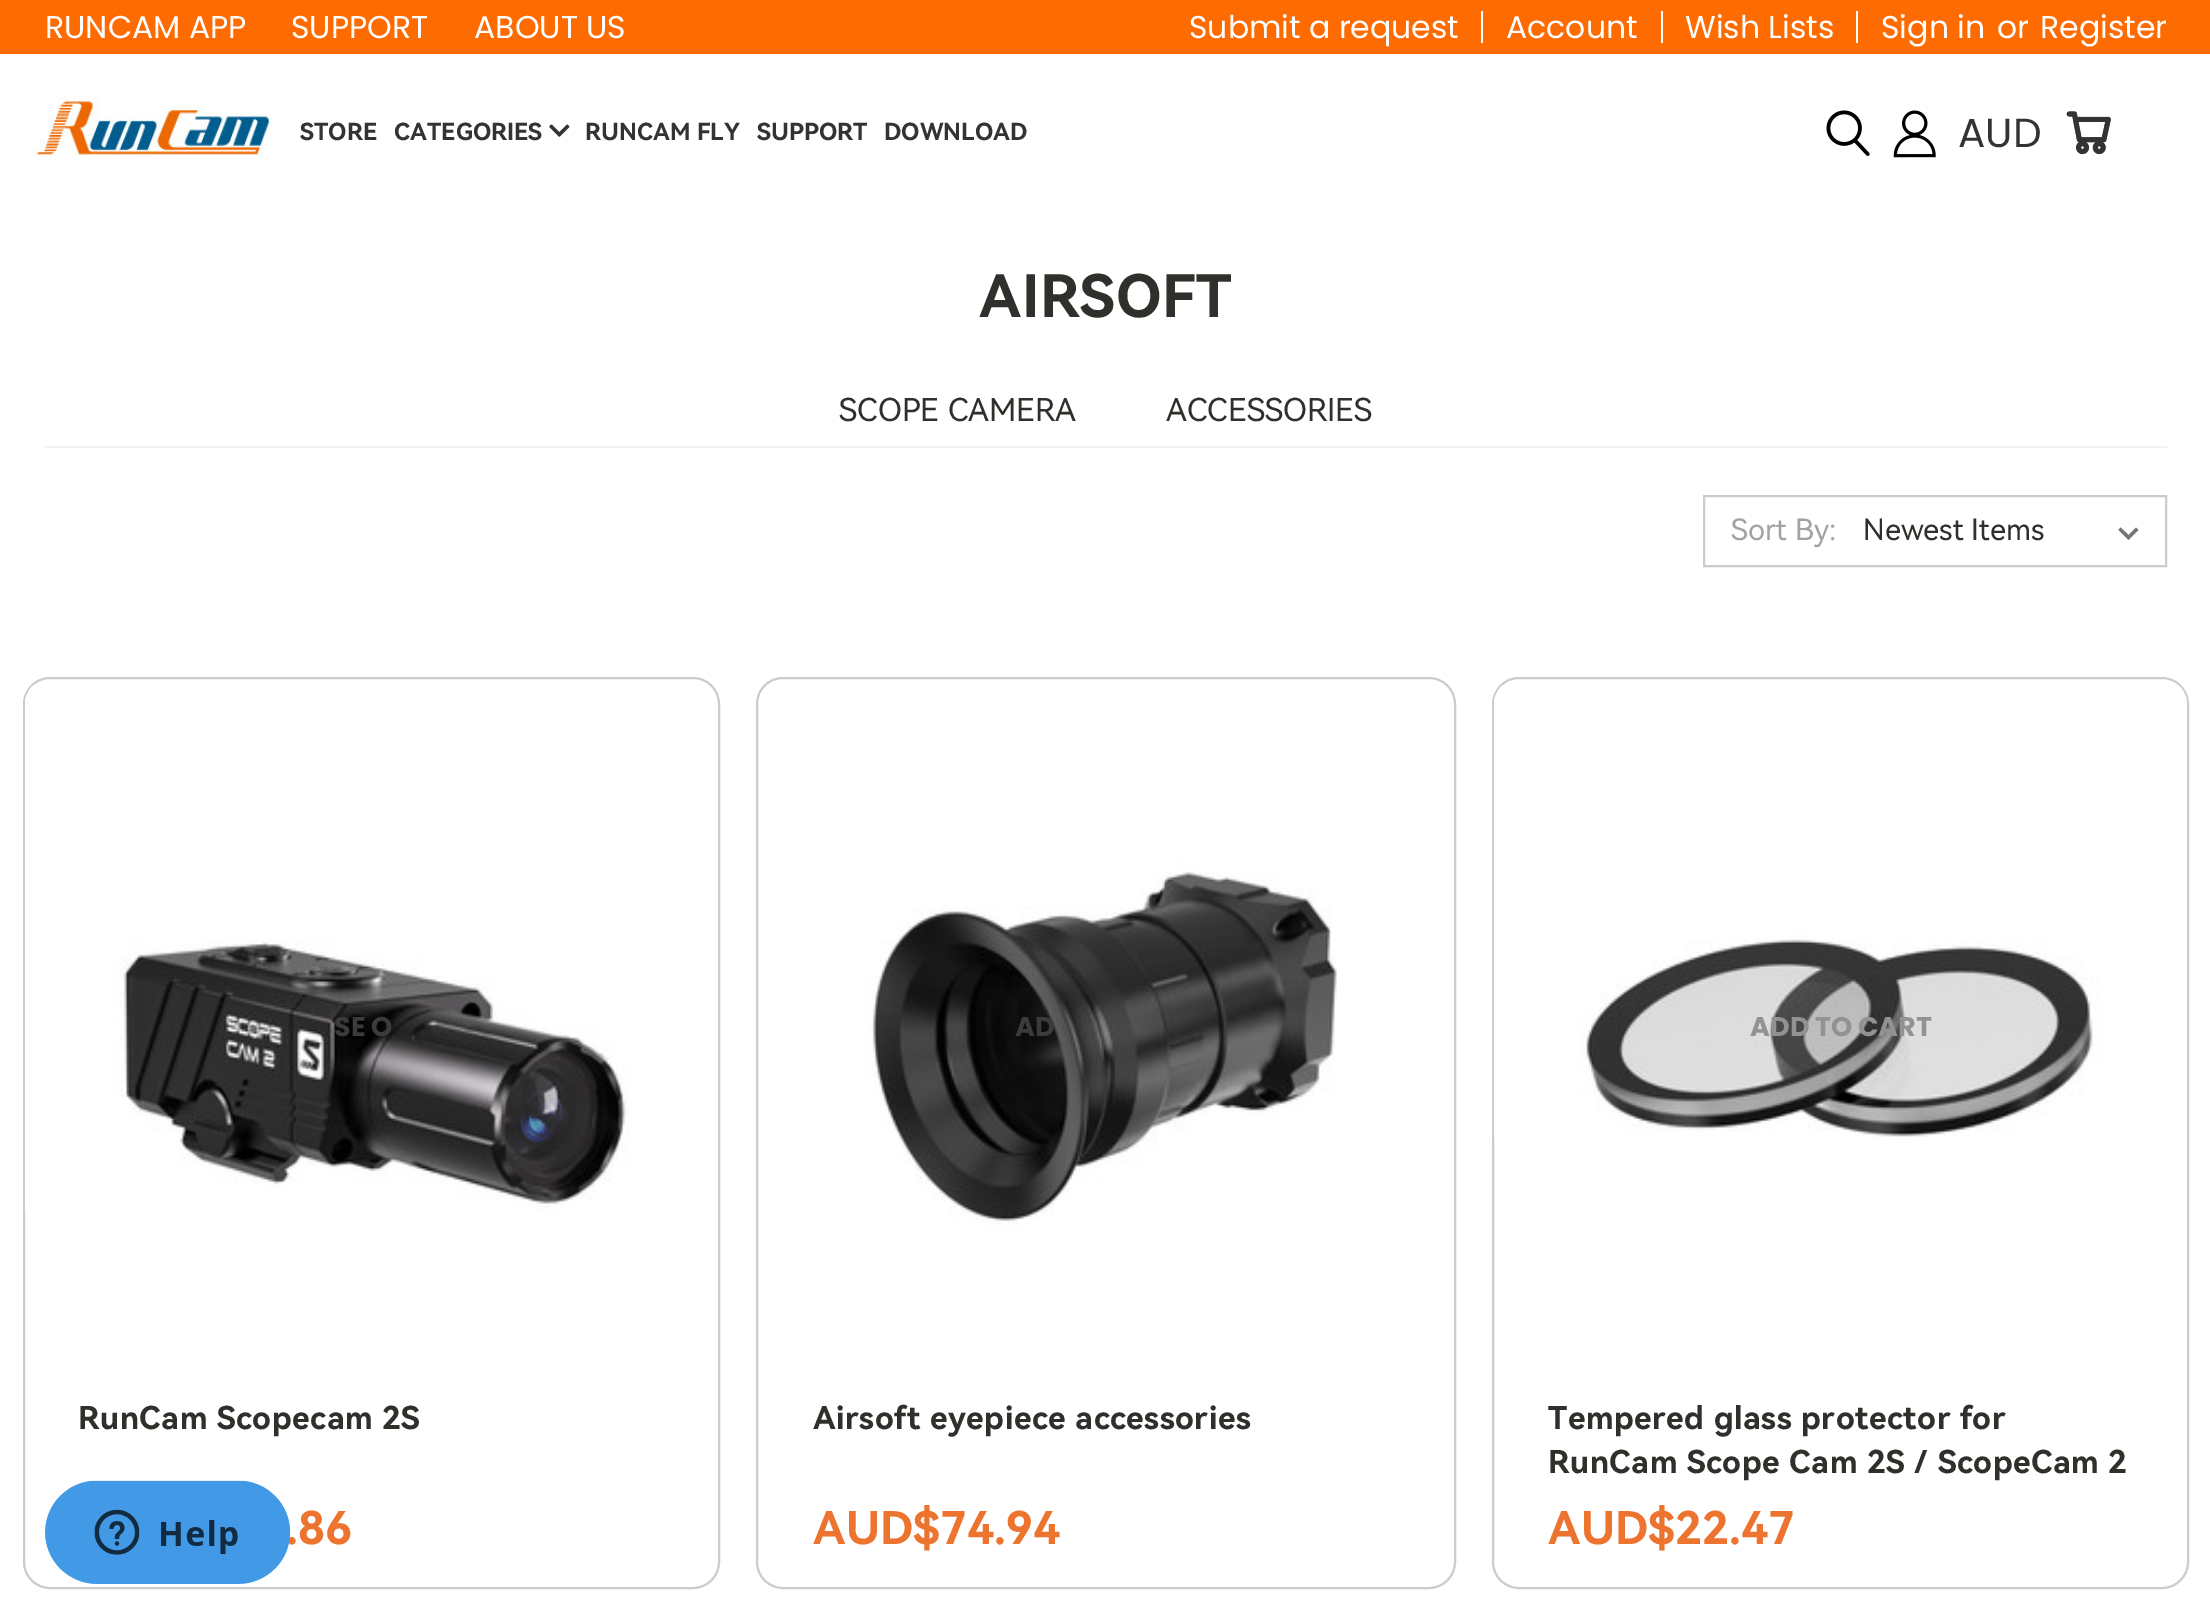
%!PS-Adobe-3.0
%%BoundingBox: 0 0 2210 1615
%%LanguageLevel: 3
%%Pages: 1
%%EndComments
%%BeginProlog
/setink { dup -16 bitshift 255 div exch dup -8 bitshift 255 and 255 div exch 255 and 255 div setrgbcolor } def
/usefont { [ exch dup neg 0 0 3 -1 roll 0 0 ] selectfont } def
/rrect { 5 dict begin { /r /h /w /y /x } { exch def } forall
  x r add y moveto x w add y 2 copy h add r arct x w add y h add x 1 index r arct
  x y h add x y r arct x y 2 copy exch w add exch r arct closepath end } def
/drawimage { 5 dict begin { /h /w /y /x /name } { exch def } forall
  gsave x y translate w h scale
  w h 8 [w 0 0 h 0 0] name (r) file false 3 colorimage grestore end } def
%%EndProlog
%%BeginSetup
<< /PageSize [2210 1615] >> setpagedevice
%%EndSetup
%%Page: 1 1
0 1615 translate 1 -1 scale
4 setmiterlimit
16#FFFFFF setink
0 0 2210 1615 rectfill
16#FE6B00 setink
0 0 2210 54 rectfill
/Poppins-Regular 31.5 usefont
16#FFFFFF setink
[
    [(RUNCAM APP) 45 38]
    [(SUPPORT) 291 38]
    [(ABOUT US) 474 38]
] { aload pop moveto show } forall
1481 11 2 32 rectfill
1189 38 moveto (Submit a request) show
1661 11 2 32 rectfill
1506 38 moveto (Account) show
1856 11 2 32 rectfill
[
    [(Wish Lists) 1685 38]
    [(Sign in) 1881 38]
    [(or) 1997 38]
    [(Register) 2040 38]
] { aload pop moveto show } forall
(img1.raw) 31 96 242 61 drawimage
/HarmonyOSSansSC-Bold 23.5 usefont
16#333333 setink
300 140 moveto (STORE) show
394 140 moveto (CATEGORIES) show
(img2.raw) 549 124 21 13 drawimage
[
    [(RUNCAM FLY) 585 140]
    [(SUPPORT) 757 140]
    [(DOWNLOAD) 884 140]
] { aload pop moveto show } forall
(img3.raw) 1826 110 44 46 drawimage
(img4.raw) 1893 110 43 48 drawimage
/Poppins-Regular 40.5 usefont
1958 147 moveto (AUD) show
(img5.raw) 2066 111 45 44 drawimage
/HarmonyOSSansSC-Bold 58.5 usefont
16#2F2F2B setink
979 317 moveto 0.55 0 (AIRSOFT) ashow
16#F2F2F2 setink
45 446 2122 2 rectfill
/HarmonyOSSansSC-Regular 31.5 usefont
16#2F2F2B setink
839 421 moveto (SCOPE CAMERA) show
1166 421 moveto (ACCESSORIES) show
16#CCCCCC setink
2 setlinewidth
1704 496 462 70 rectstroke
/HarmonyOSSansSC-Regular 29.25 usefont
16#A2A2A2 setink
1731 540 moveto (Sort By:) show
16#757575 setink
2136 527.5 moveto 2128.5 535 lineto 2120.5 527.5 lineto 2118.5 530 lineto 2128.5 540 lineto 2138.5 530 lineto closepath fill
16#2F2F2B setink
1863 540 moveto (Newest Items) show
16#CCCCCC setink
24 678 695 910 26 rrect stroke
(img6.raw) 25 684 604 527 drawimage
/Poppins-Bold 27 usefont
16#3B3B3B setink
334 1036 moveto (SE O) show
/HarmonyOSSansSC-Bold 31.5 usefont
16#2F2F2B setink
78 1429 moveto 0.55 0 (RunCam Scopecam 2S) ashow
/HarmonyOSSansSC-Bold 45 usefont
16#ED742E setink
286 1544 moveto (.86) show
16#CCCCCC setink
757 678 698 910 26 rrect stroke
(img7.raw) 760 693 577 540 drawimage
/Poppins-Bold 27 usefont
16#3B3B3B setink
1015 1036 moveto (AD) show
/HarmonyOSSansSC-Bold 31.5 usefont
16#2F2F2B setink
813 1429 moveto 0.55 0 (Airsoft eyepiece accessories) ashow
/HarmonyOSSansSC-Bold 45 usefont
16#ED742E setink
813 1544 moveto (AUD$74.94) show
16#CCCCCC setink
1493 678 695 910 26 rrect stroke
(img8.raw) 1494 685 693 452 drawimage
/Poppins-Bold 27 usefont
16#929292 setink
1750 1036 moveto (ADD TO CART) show
gsave
1548 1397 585 88 rectclip
/HarmonyOSSansSC-Bold 31.5 usefont
16#2F2F2B setink
1548 1429 moveto 0.55 0 (Tempered glass protector for) ashow
grestore
/HarmonyOSSansSC-Bold 31.5 usefont
16#2F2F2B setink
1548 1473 moveto 0.55 0 (RunCam Scope Cam 2S / ScopeCam 2) ashow
/HarmonyOSSansSC-Bold 45 usefont
16#ED742E setink
1548 1544 moveto (AUD$22.47) show
(img9.raw) 45 1480 246 104 drawimage
showpage
%%EOF
